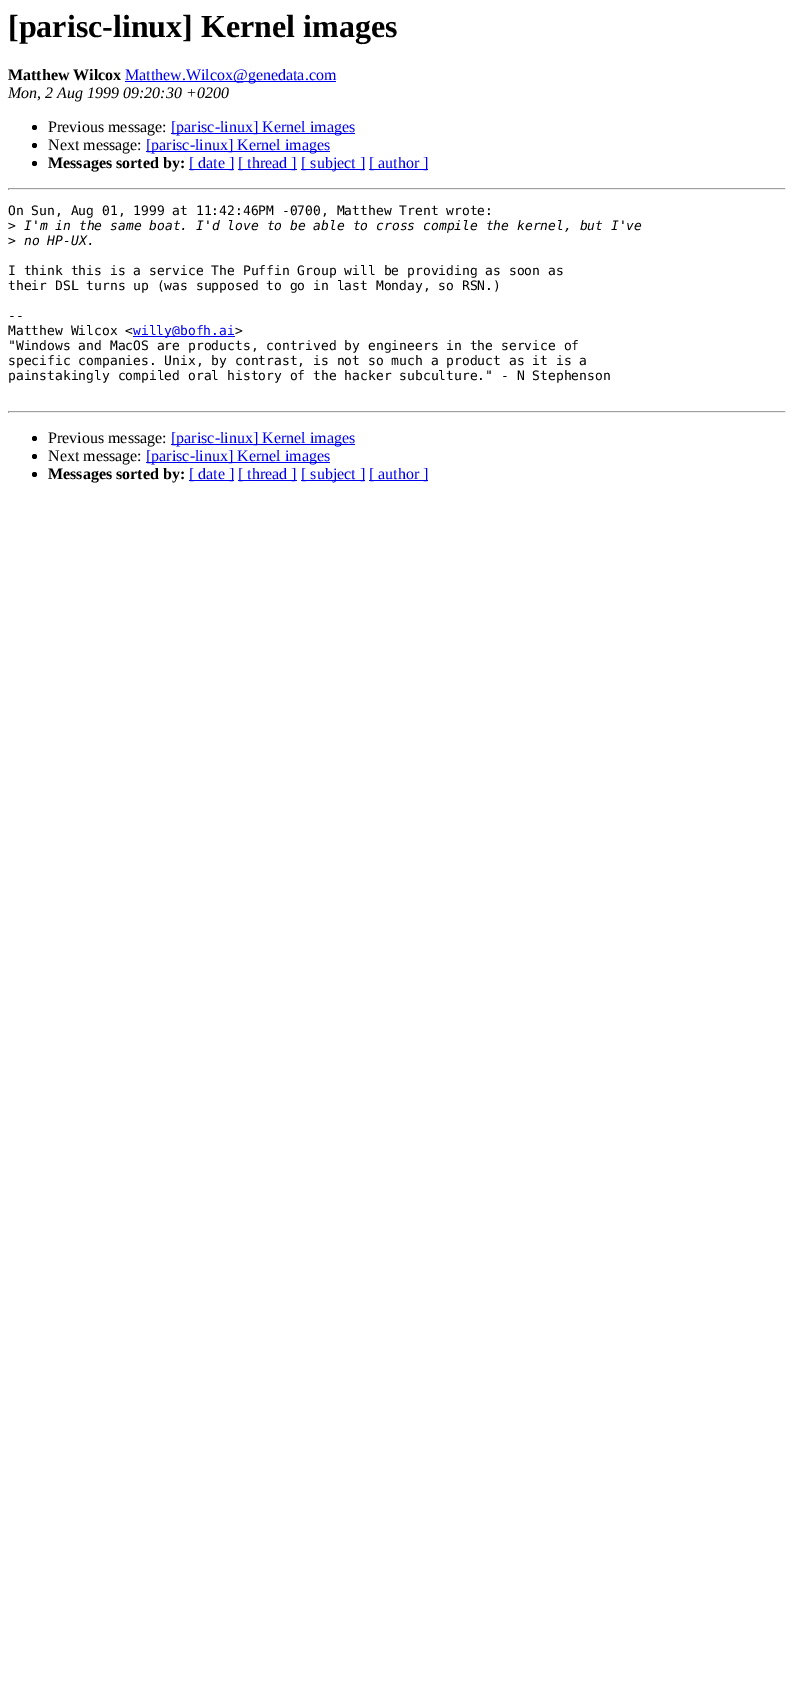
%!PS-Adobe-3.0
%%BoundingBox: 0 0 794 1687
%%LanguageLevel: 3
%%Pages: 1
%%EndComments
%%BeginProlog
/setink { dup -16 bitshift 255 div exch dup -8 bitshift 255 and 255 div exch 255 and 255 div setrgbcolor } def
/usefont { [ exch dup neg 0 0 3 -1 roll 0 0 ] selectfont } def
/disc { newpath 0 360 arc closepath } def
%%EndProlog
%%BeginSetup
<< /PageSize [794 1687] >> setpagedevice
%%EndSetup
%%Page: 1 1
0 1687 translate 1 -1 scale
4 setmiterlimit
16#FFFFFF setink
0 0 794 1687 rectfill
/LiberationSerif-Bold 32 usefont
16#000000 setink
8 37 moveto ([parisc-linux] Kernel images) show
/LiberationSerif-Bold 16 usefont
8 80 moveto (Matthew Wilcox) show
16#0000EE setink
125 81 211 1 rectfill
/LiberationSerif-Regular 16 usefont
125 80 moveto (Matthew.Wilcox@genedata.com) show
/LiberationSerif-Italic 16 usefont
16#000000 setink
8 98 moveto (Mon, 2 Aug 1999 09:20:30 +0200) show
34.5 127.5 2.5 disc fill
/LiberationSerif-Regular 16 usefont
48 132 moveto (Previous message:) show
16#0000EE setink
171 133 184 1 rectfill
171 132 moveto ([parisc-linux] Kernel images) show
16#000000 setink
34.5 145.5 2.5 disc fill
48 150 moveto (Next message:) show
16#0000EE setink
146 151 184 1 rectfill
146 150 moveto ([parisc-linux] Kernel images) show
16#000000 setink
34.5 163.5 2.5 disc fill
/LiberationSerif-Bold 16 usefont
48 168 moveto (Messages sorted by:) show
16#0000EE setink
189 169 45 1 rectfill
/LiberationSerif-Regular 16 usefont
189 168 moveto ([ date ]) show
238 169 59 1 rectfill
238 168 moveto ([ thread ]) show
301 169 64 1 rectfill
301 168 moveto ([ subject ]) show
369 169 59 1 rectfill
369 168 moveto ([ author ]) show
[
    [8 188 778 1 16#9F9F9F]
    [785 188 1 2 16#EEEEEE]
    [8 189 778 1 16#EEEEEE]
    [8 188 1 2 16#9F9F9F]
] { aload pop setink rectfill } forall
/DejaVuSansMono-Regular 13 usefont
16#000000 setink
8 215 moveto (On Sun, Aug 01, 1999 at 11:42:46PM -0700, Matthew Trent wrote:) show
8 230 moveto (>) show
/DejaVuSansMono-Italic 13 usefont
24 230 moveto (I'm in the same boat. I'd love to be able to cross compile the kernel, but I've) show
/DejaVuSansMono-Regular 13 usefont
8 245 moveto (>) show
/DejaVuSansMono-Italic 13 usefont
24 245 moveto (no HP-UX.) show
/DejaVuSansMono-Regular 13 usefont
[
    [(I think this is a service The Puffin Group will be providing as soon as) 8 275]
    [(their DSL turns up \(was supposed to go in last Monday, so RSN.\)) 8 290]
    [(--) 8 320]
    [(Matthew Wilcox <) 8 335]
] { aload pop moveto show } forall
16#0000EE setink
133 336 102 1 rectfill
133 335 moveto (willy@bofh.ai) show
16#000000 setink
[
    [(>) 235 335]
    [("Windows and MacOS are products, contrived by engineers in the service of) 8 350]
    [(specific companies. Unix, by contrast, is not so much a product as it is a) 8 365]
    [(painstakingly compiled oral history of the hacker subculture." - N Stephenson) 8 380]
] { aload pop moveto show } forall
[
    [8 411 778 1 16#9F9F9F]
    [785 411 1 2 16#EEEEEE]
    [8 412 778 1 16#EEEEEE]
    [8 411 1 2 16#9F9F9F]
] { aload pop setink rectfill } forall
16#000000 setink
34.5 438.5 2.5 disc fill
/LiberationSerif-Regular 16 usefont
48 443 moveto (Previous message:) show
16#0000EE setink
171 444 184 1 rectfill
171 443 moveto ([parisc-linux] Kernel images) show
16#000000 setink
34.5 456.5 2.5 disc fill
48 461 moveto (Next message:) show
16#0000EE setink
146 462 184 1 rectfill
146 461 moveto ([parisc-linux] Kernel images) show
16#000000 setink
34.5 474.5 2.5 disc fill
/LiberationSerif-Bold 16 usefont
48 479 moveto (Messages sorted by:) show
16#0000EE setink
189 480 45 1 rectfill
/LiberationSerif-Regular 16 usefont
189 479 moveto ([ date ]) show
238 480 59 1 rectfill
238 479 moveto ([ thread ]) show
301 480 64 1 rectfill
301 479 moveto ([ subject ]) show
369 480 59 1 rectfill
369 479 moveto ([ author ]) show
showpage
%%EOF
